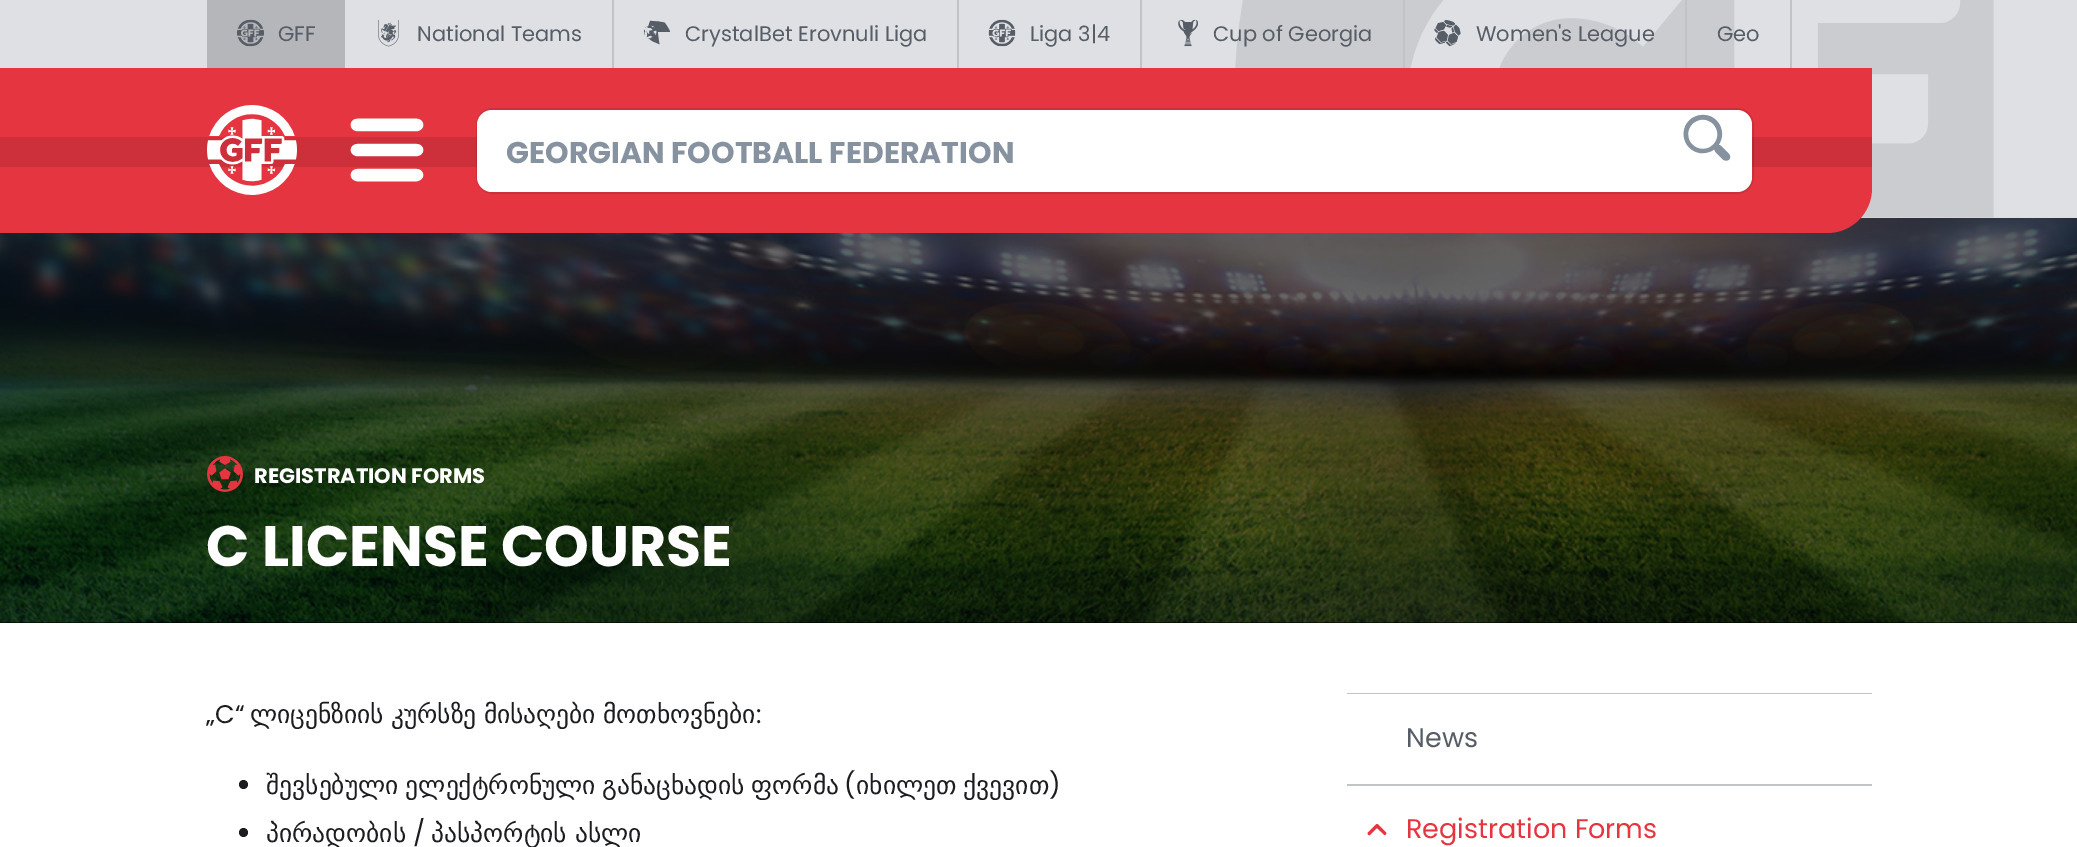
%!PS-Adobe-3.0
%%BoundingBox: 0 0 2077 847
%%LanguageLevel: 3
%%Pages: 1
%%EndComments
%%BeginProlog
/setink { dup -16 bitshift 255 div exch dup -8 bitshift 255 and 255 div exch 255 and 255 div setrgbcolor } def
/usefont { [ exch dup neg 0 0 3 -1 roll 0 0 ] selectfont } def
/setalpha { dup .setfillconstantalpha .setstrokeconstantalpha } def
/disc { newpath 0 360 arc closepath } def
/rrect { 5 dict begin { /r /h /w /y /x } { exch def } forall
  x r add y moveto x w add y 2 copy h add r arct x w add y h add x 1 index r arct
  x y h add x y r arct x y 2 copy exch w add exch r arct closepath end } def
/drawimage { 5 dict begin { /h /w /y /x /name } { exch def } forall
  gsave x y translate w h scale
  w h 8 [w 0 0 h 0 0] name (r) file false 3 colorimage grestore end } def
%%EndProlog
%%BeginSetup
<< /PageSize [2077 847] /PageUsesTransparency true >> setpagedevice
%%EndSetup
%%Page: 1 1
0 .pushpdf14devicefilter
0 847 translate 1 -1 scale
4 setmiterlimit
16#FFFFFF setink
0 0 2077 847 rectfill
16#DEE0E4 setink
0 0 2077 218 rectfill
(img1.raw) 1235 0 759 218 drawimage
16#B4B6B9 setink
207 0 138 68 rectfill
(img2.raw) 237 19 27 28 drawimage
/Poppins-Regular 21 usefont
16#565D66 setink
278 41 moveto (GFF) show
16#C1C3C6 setink
612 0 2 68 rectfill
(img3.raw) 378 20 21 27 drawimage
16#565D66 setink
417 41 moveto (National Teams) show
16#C1C3C6 setink
957 0 2 68 rectfill
(img4.raw) 643 20 28 25 drawimage
16#565D66 setink
685 41 moveto (CrystalBet Erovnuli Liga) show
16#C1C3C6 setink
1140 0 2 68 rectfill
(img5.raw) 988 19 28 28 drawimage
16#565D66 setink
1030 41 moveto (Liga 3|4) show
16#C1C3C6 setink
1403 0 2 68 rectfill
(img6.raw) 1178 19 20 28 drawimage
16#565D66 setink
1213 41 moveto (Cup of Georgia) show
16#C1C3C6 setink
1685 0 2 68 rectfill
(img7.raw) 1434 20 27 27 drawimage
16#565D66 setink
1476 41 moveto (Women's League) show
16#C1C3C6 setink
1790 0 2 68 rectfill
16#565D66 setink
1717 41 moveto (Geo) show
16#000000 setink
0 218 2077 405 rectfill
(img11.raw) 0 218 2077 405 drawimage
16#E43541 setink
0 68 moveto 1872 68 lineto 1872 188 lineto 1872 213 1852 233 1827 233 curveto 0 233 lineto closepath fill
16#CD303B setink
0 137 1872 30 rectfill
(img8.raw) 207 105 90 90 drawimage
(img9.raw) 350 118 74 64 drawimage
0.1 setalpha
16#000000 setink
2 setlinewidth
477 109 1276 84 16 rrect stroke
1 setalpha
16#FFFFFF setink
477 110 1275 82 15 rrect fill
/Poppins-Bold 30 usefont
16#8792A0 setink
506 163 moveto (GEORGIAN FOOTBALL FEDERATION) show
(img10.raw) 1683 114 48 47 drawimage
(img12.raw) 207 456 36 36 drawimage
/Poppins-Bold 21 usefont
16#FFFFFF setink
254 483 moveto (REGISTRATION FORMS) show
/Poppins-Bold 57 usefont
206 566 moveto (C LICENSE COURSE) show
/Poppins-Regular 25.5 usefont
16#1C1D21 setink
206 723 moveto („C“) show
/DejaVuSans-Regular 25.5 usefont
250 723 moveto -1 0 32 (ლიცენზიის კურსზე მისაღები მოთხოვნები) widthshow
/Poppins-Regular 25.5 usefont
756 723 moveto (:) show
243.5 784.5 4.5 disc fill
/DejaVuSans-Regular 25.5 usefont
266 794 moveto -1 0 32 (შევსებული ელექტრონული) widthshow
602 794 moveto -1 0 32 (განაცხადის ფორმა) widthshow
/Poppins-Regular 25.5 usefont
844 794 moveto (\() show
/DejaVuSans-Regular 25.5 usefont
856 794 moveto -1 0 32 (იხილეთ ქვევით) widthshow
/Poppins-Regular 25.5 usefont
1049 794 moveto (\)) show
243.5 832.5 4.5 disc fill
/DejaVuSans-Regular 25.5 usefont
266 842 moveto (პირადობის) show
/Poppins-Regular 25.5 usefont
413 842 moveto (/) show
/DejaVuSans-Regular 25.5 usefont
431 842 moveto (პასპორტის ასლი) show
16#C1C3C6 setink
1347 784 525 2 rectfill
1347 693 525 1 rectfill
/Poppins-Regular 27 usefont
16#565D66 setink
1406 747 moveto (News) show
(img13.raw) 1367 824 20 12 drawimage
16#E43541 setink
1406 838 moveto (Registration Forms) show
.poppdf14devicefilter showpage
%%EOF
